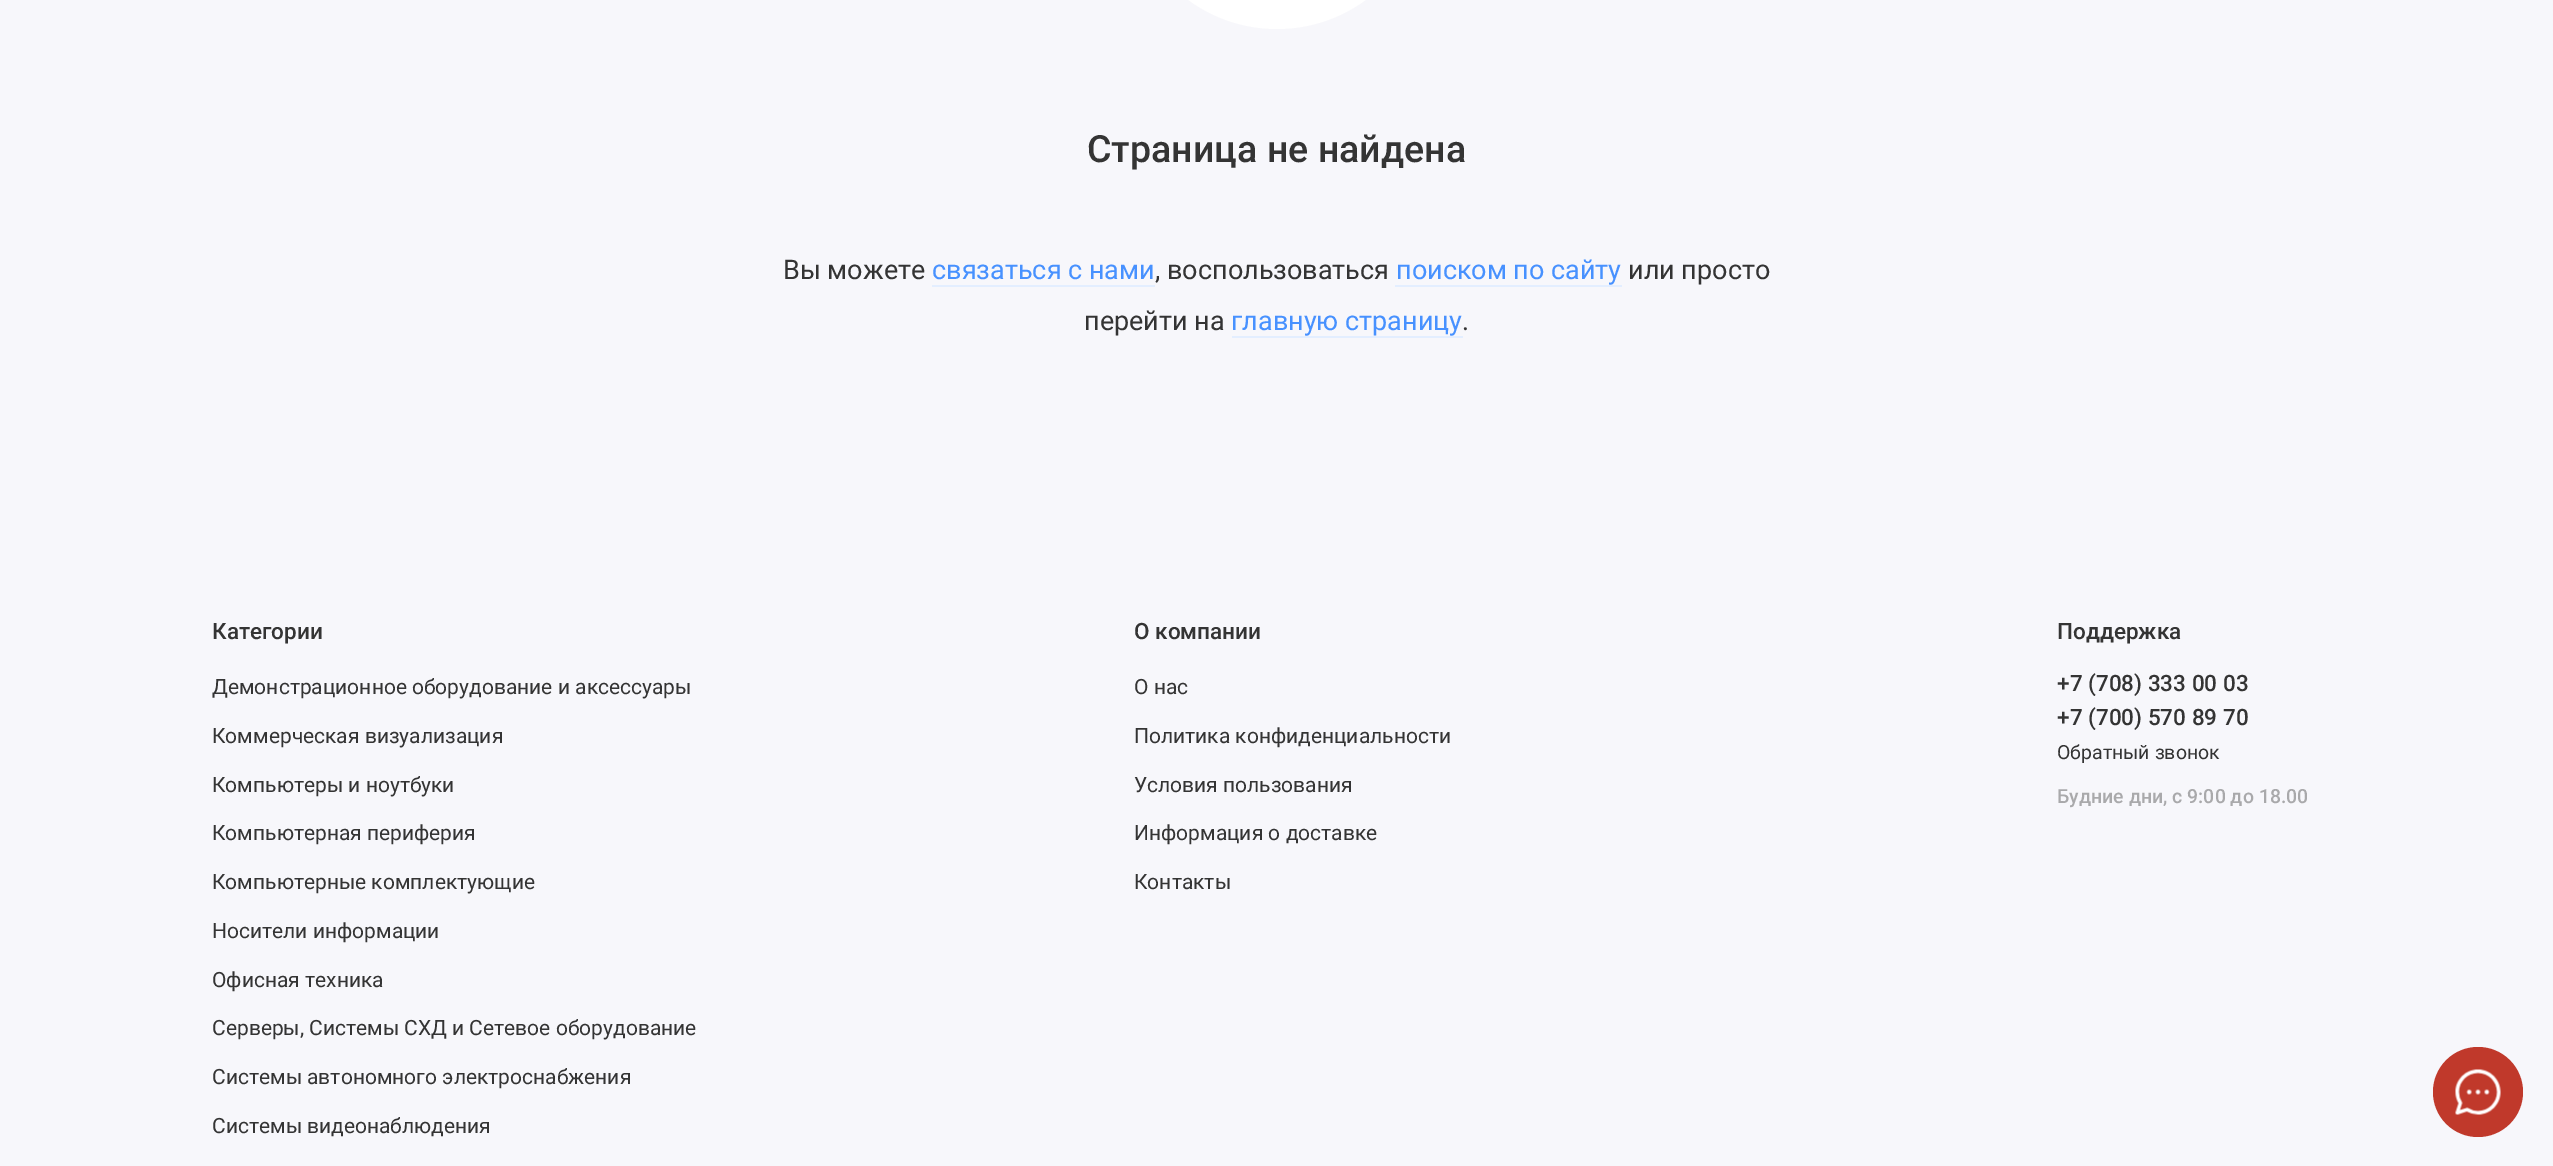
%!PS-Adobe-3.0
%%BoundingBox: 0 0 2553 1166
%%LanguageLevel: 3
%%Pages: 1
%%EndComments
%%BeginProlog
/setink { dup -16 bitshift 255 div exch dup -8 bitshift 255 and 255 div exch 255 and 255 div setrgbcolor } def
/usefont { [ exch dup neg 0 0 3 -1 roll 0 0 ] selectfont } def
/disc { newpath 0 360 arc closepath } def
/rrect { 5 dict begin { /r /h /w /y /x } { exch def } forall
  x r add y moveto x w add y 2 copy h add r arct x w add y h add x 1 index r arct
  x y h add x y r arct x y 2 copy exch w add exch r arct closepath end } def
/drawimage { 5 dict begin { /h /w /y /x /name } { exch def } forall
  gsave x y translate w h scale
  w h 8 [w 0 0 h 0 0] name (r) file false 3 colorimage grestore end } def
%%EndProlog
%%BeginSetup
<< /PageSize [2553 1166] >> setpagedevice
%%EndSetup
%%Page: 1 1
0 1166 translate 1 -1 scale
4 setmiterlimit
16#F7F7FB setink
0 0 2553 1166 rectfill
16#FFFFFF setink
1127 -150 300 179 150 rrect fill
/Roboto-Medium 37.5 usefont
16#343434 setink
1087 162 moveto (Страница не найдена) show
/Roboto-Regular 27 usefont
783 279 moveto (Вы можете) show
16#4791FF setink
932 279 moveto (связаться с нами) show
16#E3EEFF setink
932 285 223 2 rectfill
16#343434 setink
1155 279 moveto (, воспользоваться) show
16#4791FF setink
1396 279 moveto (поиском по сайту) show
16#E3EEFF setink
1395 285 227 2 rectfill
16#343434 setink
1628 279 moveto (или просто) show
1084 330 moveto (перейти на) show
16#4791FF setink
1231 330 moveto (главную страницу) show
16#E3EEFF setink
1232 336 231 2 rectfill
16#343434 setink
1462 330 moveto (.) show
/Roboto-Medium 22.5 usefont
212 639 moveto (Категории) show
/Roboto-Regular 21 usefont
[
    [(Демонстрационное оборудование и аксессуары) 212 694]
    [(Коммерческая визуализация) 212 743]
    [(Компьютеры и ноутбуки) 212 792]
    [(Компьютерная периферия) 212 840]
    [(Компьютерные комплектующие) 212 889]
    [(Носители информации) 212 938]
    [(Офисная техника) 212 987]
    [(Серверы, Системы СХД и Сетевое оборудование) 212 1035]
    [(Системы автономного электроснабжения) 212 1084]
    [(Системы видеонаблюдения) 212 1133]
] { aload pop moveto show } forall
/Roboto-Medium 22.5 usefont
1134 639 moveto (О компании) show
/Roboto-Regular 21 usefont
[
    [(О нас) 1134 694]
    [(Политика конфиденциальности) 1134 743]
    [(Условия пользования) 1134 792]
    [(Информация о доставке) 1134 840]
    [(Контакты) 1134 889]
] { aload pop moveto show } forall
/Roboto-Medium 22.5 usefont
[
    [(Поддержка) 2057 639]
    [(+7 \(708\) 333 00 03) 2057 691]
    [(+7 \(700\) 570 89 70) 2057 725]
] { aload pop moveto show } forall
/Roboto-Regular 19.5 usefont
2057 759 moveto (Обратный звонок) show
/Roboto-Medium 19.5 usefont
16#A9A9AB setink
2057 803 moveto (Будние дни, с 9:00 до 18.00) show
16#C0392B setink
2478 1092 45 disc fill
(img1.raw) 2455 1069 46 46 drawimage
showpage
%%EOF
